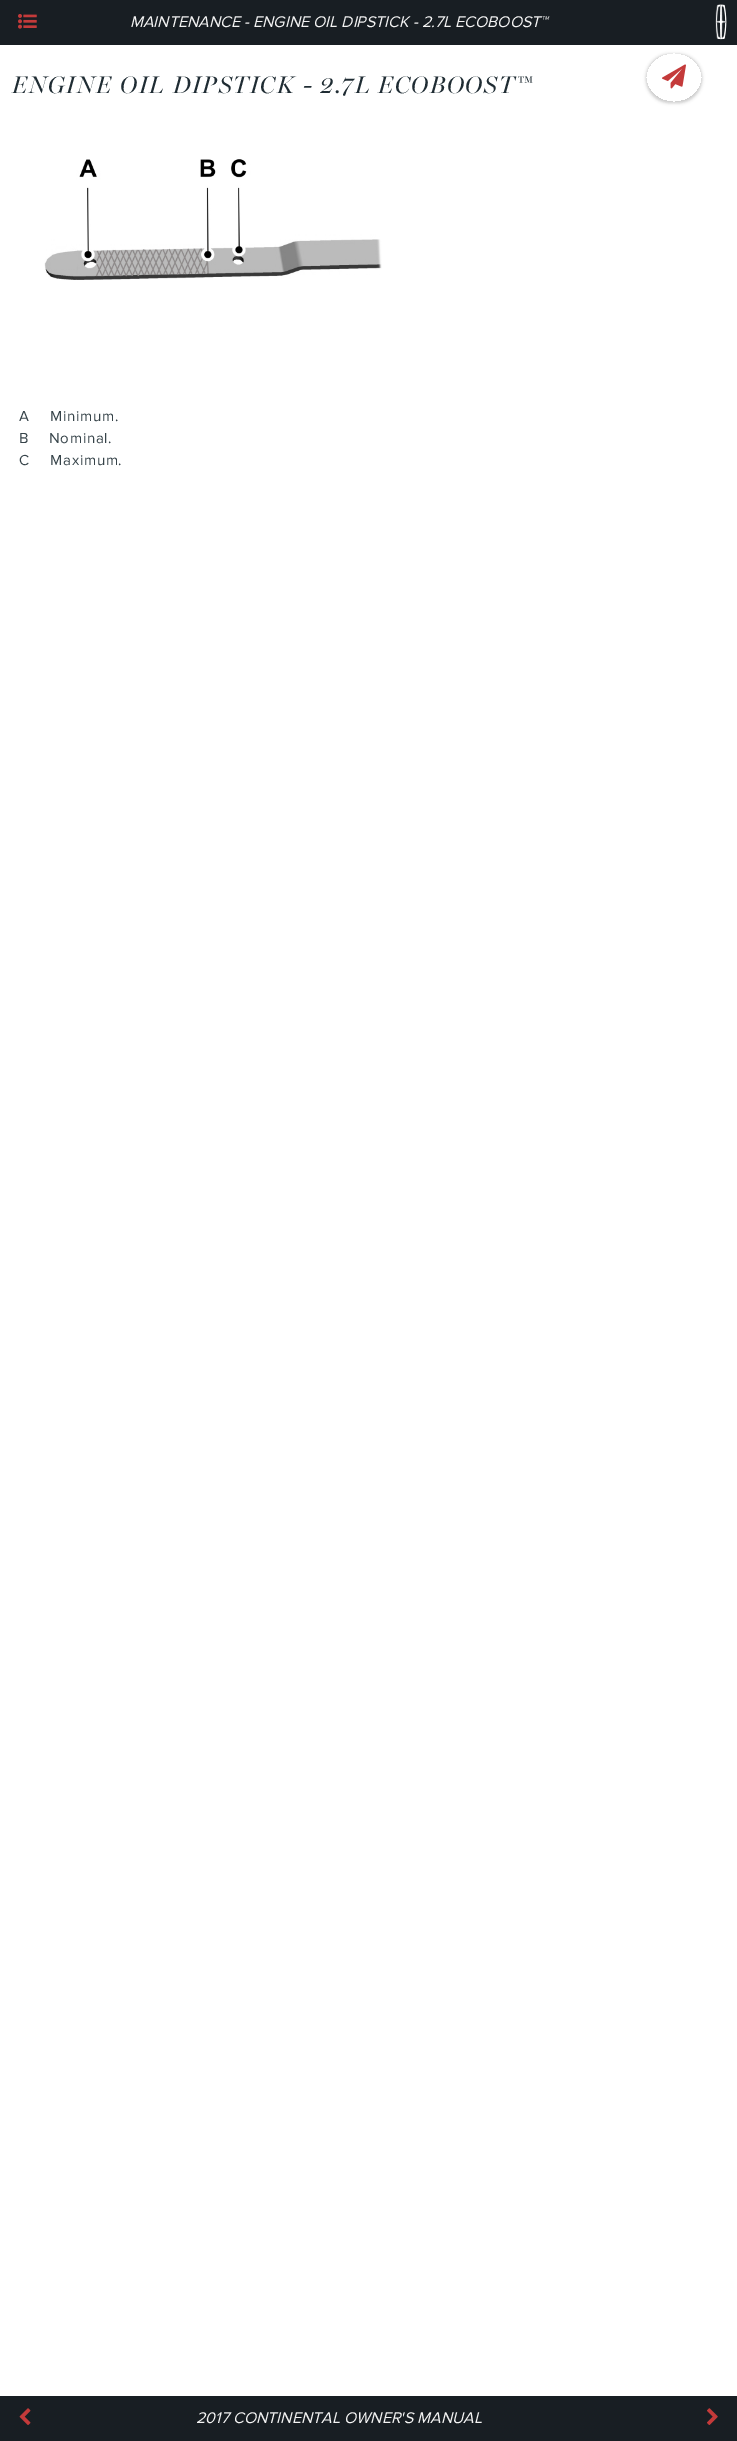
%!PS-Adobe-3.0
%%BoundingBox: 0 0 737 2441
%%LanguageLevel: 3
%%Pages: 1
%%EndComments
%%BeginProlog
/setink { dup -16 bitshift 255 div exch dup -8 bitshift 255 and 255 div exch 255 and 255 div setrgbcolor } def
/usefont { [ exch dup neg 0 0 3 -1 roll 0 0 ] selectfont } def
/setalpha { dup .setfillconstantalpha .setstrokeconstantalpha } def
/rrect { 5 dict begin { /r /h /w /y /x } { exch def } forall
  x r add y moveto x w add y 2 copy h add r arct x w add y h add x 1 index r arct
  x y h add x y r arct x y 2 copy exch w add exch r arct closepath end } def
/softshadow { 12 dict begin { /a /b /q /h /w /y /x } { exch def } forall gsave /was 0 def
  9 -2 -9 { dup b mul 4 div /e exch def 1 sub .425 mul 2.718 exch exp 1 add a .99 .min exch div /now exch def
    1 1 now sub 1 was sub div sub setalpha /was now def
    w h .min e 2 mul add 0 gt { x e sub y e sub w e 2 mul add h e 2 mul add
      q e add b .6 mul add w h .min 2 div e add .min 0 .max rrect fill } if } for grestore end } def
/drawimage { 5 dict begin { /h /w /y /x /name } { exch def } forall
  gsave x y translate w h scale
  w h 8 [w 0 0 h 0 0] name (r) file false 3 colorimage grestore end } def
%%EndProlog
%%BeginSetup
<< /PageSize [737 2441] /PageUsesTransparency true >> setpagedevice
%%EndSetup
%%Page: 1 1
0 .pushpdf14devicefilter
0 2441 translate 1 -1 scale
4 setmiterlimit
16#FFFFFF setink
0 0 737 2441 rectfill
16#181E23 setink
0 0 737 45 rectfill
(img1.raw) 18 14 19 15 drawimage
/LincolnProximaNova-Italic 16 usefont
16#F3F3F3 setink
130 27 moveto (MAINTENANCE - ENGINE OIL DIPSTICK - 2.7L ECOBOOST™) show
(img2.raw) 715 4 12 36 drawimage
/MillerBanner-Italic 24 usefont
16#1F2C33 setink
12 93 moveto 1.5 0 (ENGINE OIL DIPSTICK - 2.7L ECOBOOST™) ashow
gsave
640 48 moveto 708 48 lineto 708 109 lineto 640 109 lineto closepath 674 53 moveto 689.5 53 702 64 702 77.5 curveto 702 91 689.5 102 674 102 curveto 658.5 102 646 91 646 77.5 curveto 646 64 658.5 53 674 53 curveto closepath eoclip newpath
16#000000 setink
646 54 56 49 24.5 1.5 0.2 softshadow
grestore
(img3.raw) 662 64 24 25 drawimage
(img4.raw) 44 159 338 121 drawimage
/LincolnProximaNova-Regular 15 usefont
16#364349 setink
19 421 moveto 0.75 0 (A) ashow
50 421 moveto 0.75 0 (Minimum.) ashow
19 443 moveto 0.75 0 (B) ashow
49 443 moveto 0.75 0 (Nominal.) ashow
19 465 moveto 0.75 0 (C) ashow
50 465 moveto 0.75 0 (Maximum.) ashow
16#181E23 setink
0 2396 737 45 rectfill
(img5.raw) 19 2408 12 17 drawimage
/LincolnProximaNova-Italic 16 usefont
16#F3F3F3 setink
196 2423 moveto (2017 CONTINENTAL OWNER'S MANUAL) show
(img6.raw) 707 2408 11 17 drawimage
.poppdf14devicefilter showpage
%%EOF
